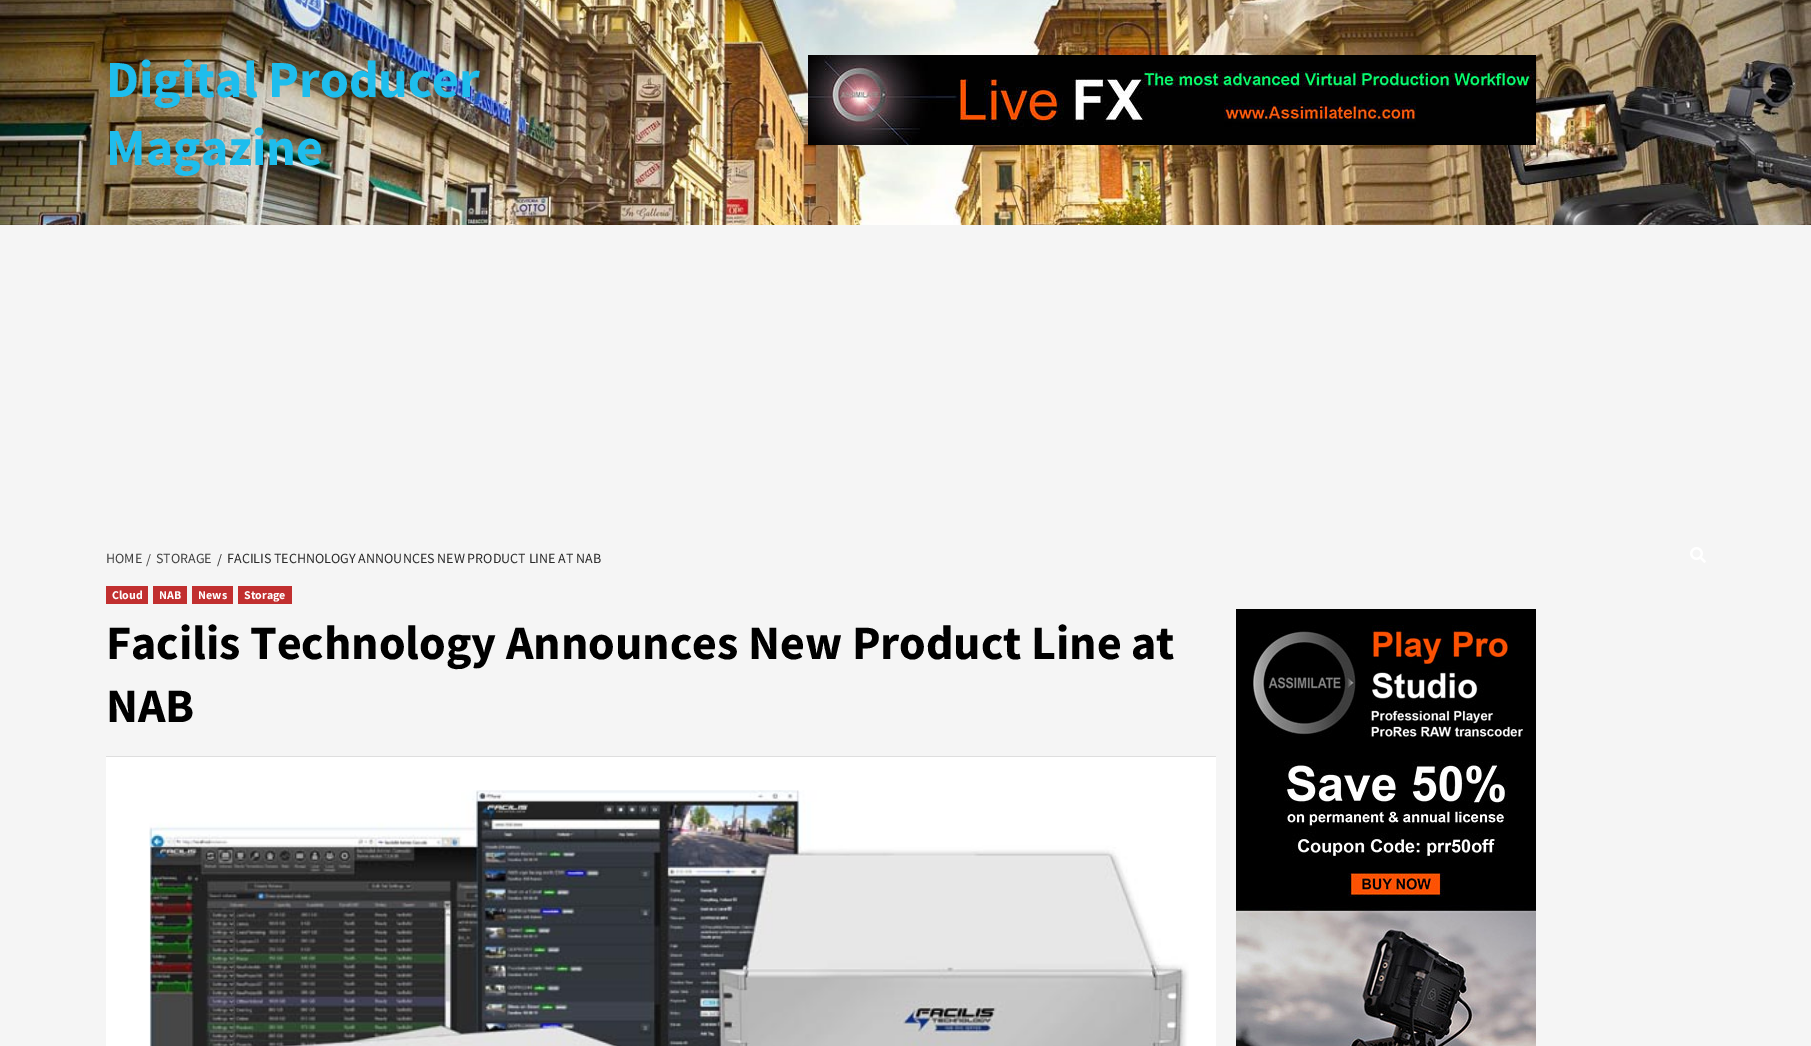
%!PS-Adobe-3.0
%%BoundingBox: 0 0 1811 1046
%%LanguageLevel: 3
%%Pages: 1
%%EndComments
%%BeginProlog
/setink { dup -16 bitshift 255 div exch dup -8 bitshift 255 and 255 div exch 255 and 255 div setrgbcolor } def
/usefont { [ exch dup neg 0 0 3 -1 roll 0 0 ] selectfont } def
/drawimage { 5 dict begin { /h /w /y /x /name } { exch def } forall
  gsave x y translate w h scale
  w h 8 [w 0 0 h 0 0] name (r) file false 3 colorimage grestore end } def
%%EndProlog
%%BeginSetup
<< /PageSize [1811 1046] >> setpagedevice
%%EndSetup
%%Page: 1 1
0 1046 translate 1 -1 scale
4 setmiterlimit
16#F5F5F5 setink
0 0 1811 1046 rectfill
(img1.raw) 0 0 1811 225 drawimage
/SourceSansPro-Bold 52 usefont
16#1EBDED setink
106 97 moveto (Digital Producer) show
106 165 moveto (Magazine) show
(img2.raw) 808 55 728 90 drawimage
(img3.raw) 1690 547 16 16 drawimage
/SourceSansPro-Regular 14 usefont
16#404040 setink
[
    [(HOME) 106 563]
    [(/) 146 564]
    [(STORAGE) 156 563]
] { aload pop moveto show } forall
16#2A2A2A setink
217 564 moveto (/) show
227 563 moveto (FACILIS TECHNOLOGY ANNOUNCES NEW PRODUCT LINE AT NAB) show
[
    [106 757 1110 289 16#FFFFFF]
    [106 756 1110 1 16#DEDEDE]
    [106 586 42 18 16#C12F2F]
] { aload pop setink rectfill } forall
/SourceSansPro-Bold 12 usefont
16#FEFEFE setink
112 599 moveto (Cloud) show
16#C12F2F setink
153 586 34 18 rectfill
16#FEFEFE setink
159 599 moveto (NAB) show
16#C12F2F setink
192 586 41 18 rectfill
16#FEFEFE setink
198 599 moveto (News) show
16#C12F2F setink
238 586 54 18 rectfill
16#FEFEFE setink
244 599 moveto (Storage) show
/SourceSansPro-Bold 48 usefont
16#000000 setink
106 659 moveto (Facilis Technology Announces New Product Line at) show
106 722 moveto (NAB) show
(img4.raw) 149 790 1040 256 drawimage
(img5.raw) 1236 609 300 437 drawimage
showpage
%%EOF
